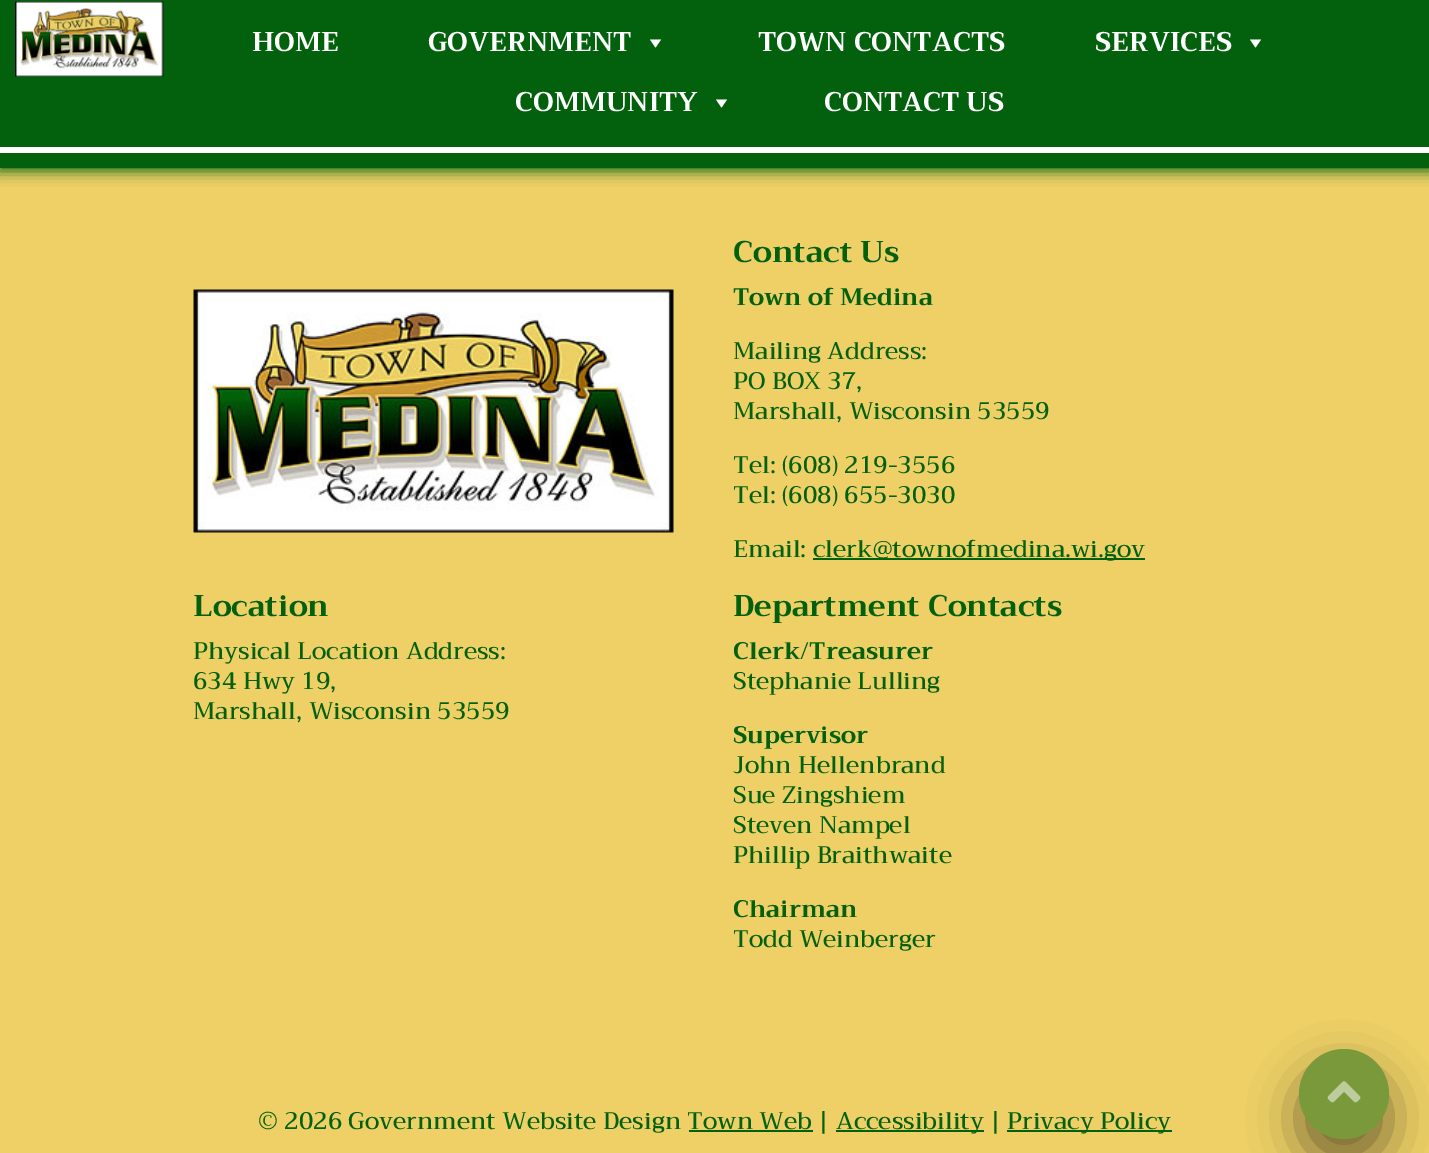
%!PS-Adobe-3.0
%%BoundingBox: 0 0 1429 1153
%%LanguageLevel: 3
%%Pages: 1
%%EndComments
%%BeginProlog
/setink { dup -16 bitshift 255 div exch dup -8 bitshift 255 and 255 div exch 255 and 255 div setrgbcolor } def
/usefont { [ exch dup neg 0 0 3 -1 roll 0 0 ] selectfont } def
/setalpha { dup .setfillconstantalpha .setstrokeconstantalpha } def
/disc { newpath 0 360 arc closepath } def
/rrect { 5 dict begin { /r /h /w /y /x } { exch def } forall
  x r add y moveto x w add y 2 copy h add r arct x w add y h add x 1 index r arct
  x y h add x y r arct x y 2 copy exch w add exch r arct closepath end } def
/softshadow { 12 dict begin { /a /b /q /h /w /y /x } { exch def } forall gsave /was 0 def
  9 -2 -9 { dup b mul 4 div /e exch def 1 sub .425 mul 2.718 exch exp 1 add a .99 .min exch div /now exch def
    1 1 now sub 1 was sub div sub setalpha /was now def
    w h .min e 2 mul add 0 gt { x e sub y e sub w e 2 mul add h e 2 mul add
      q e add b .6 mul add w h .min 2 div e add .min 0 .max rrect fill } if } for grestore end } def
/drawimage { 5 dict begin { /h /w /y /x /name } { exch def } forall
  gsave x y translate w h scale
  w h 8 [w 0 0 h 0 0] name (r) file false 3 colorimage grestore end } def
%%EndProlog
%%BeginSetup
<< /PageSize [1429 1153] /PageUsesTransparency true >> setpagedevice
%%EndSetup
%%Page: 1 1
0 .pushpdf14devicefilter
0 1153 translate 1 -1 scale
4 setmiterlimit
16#EED067 setink
0 0 1429 1153 rectfill
16#03610D setink
-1 0 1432 171 0 7 1 softshadow
0 0 1429 168 rectfill
(img1.raw) 15 1 149 76 drawimage
/Trirong-Bold 27 usefont
16#FFFFFF setink
252 51 moveto (HOME) show
428 51 moveto (GOVERNMENT) show
661 39.5 moveto 655.5 47.5 lineto 650 39.5 lineto closepath fill
758 51 moveto (TOWN CONTACTS) show
1095 51 moveto (SERVICES) show
1261 39.5 moveto 1255.5 47.5 lineto 1250 39.5 lineto closepath fill
515 111 moveto (COMMUNITY) show
727 99.5 moveto 721.5 107.5 lineto 716 99.5 lineto closepath fill
824 111 moveto (CONTACT US) show
0 147 1429 6 rectfill
(img2.raw) 193 289 481 244 drawimage
/Trirong-Bold 30 usefont
16#03610D setink
733 262 moveto (Contact Us) show
/Trirong-Bold 24 usefont
733 305 moveto (Town of Medina) show
/Trirong-Medium 24 usefont
[
    [(Mailing Address:) 733 359]
    [(PO BOX 37,) 733 389]
    [(Marshall, Wisconsin 53559) 733 419]
    [(Tel: \(608\) 219-3556) 733 473]
    [(Tel: \(608\) 655-3030) 733 503]
    [(Email:) 733 557]
] { aload pop moveto show } forall
813 558 332 2 rectfill
813 557 moveto (clerk@townofmedina.wi.gov) show
/Trirong-Bold 30 usefont
193 616 moveto (Location) show
/Trirong-Medium 24 usefont
[
    [(Physical Location Address:) 193 659]
    [(634 Hwy 19,) 193 689]
    [(Marshall, Wisconsin 53559) 193 719]
] { aload pop moveto show } forall
/Trirong-Bold 30 usefont
733 616 moveto (Department Contacts) show
/Trirong-Bold 24 usefont
733 659 moveto (Clerk/Treasurer) show
/Trirong-Medium 24 usefont
733 689 moveto (Stephanie Lulling) show
/Trirong-Bold 24 usefont
733 743 moveto (Supervisor) show
/Trirong-Medium 24 usefont
[
    [(John Hellenbrand) 733 773]
    [(Sue Zingshiem) 733 803]
    [(Steven Nampel) 733 833]
    [(Phillip Braithwaite) 733 863]
] { aload pop moveto show } forall
/Trirong-Bold 24 usefont
733 917 moveto (Chairman) show
/Trirong-Medium 24 usefont
733 947 moveto (Todd Weinberger) show
258 1129 moveto (© 2026 Government Website Design Town Web |) show
836 1130 148 2 rectfill
836 1129 moveto (Accessibility |) show
1007 1130 165 2 rectfill
1007 1129 moveto (Privacy Policy) show
689 1130 124 2 rectfill
16#776834 setink
1299 1073 90 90 45 24 1 softshadow
16#79993A setink
1344 1094 45 disc fill
(img3.raw) 1327 1081 34 22 drawimage
.poppdf14devicefilter showpage
%%EOF
